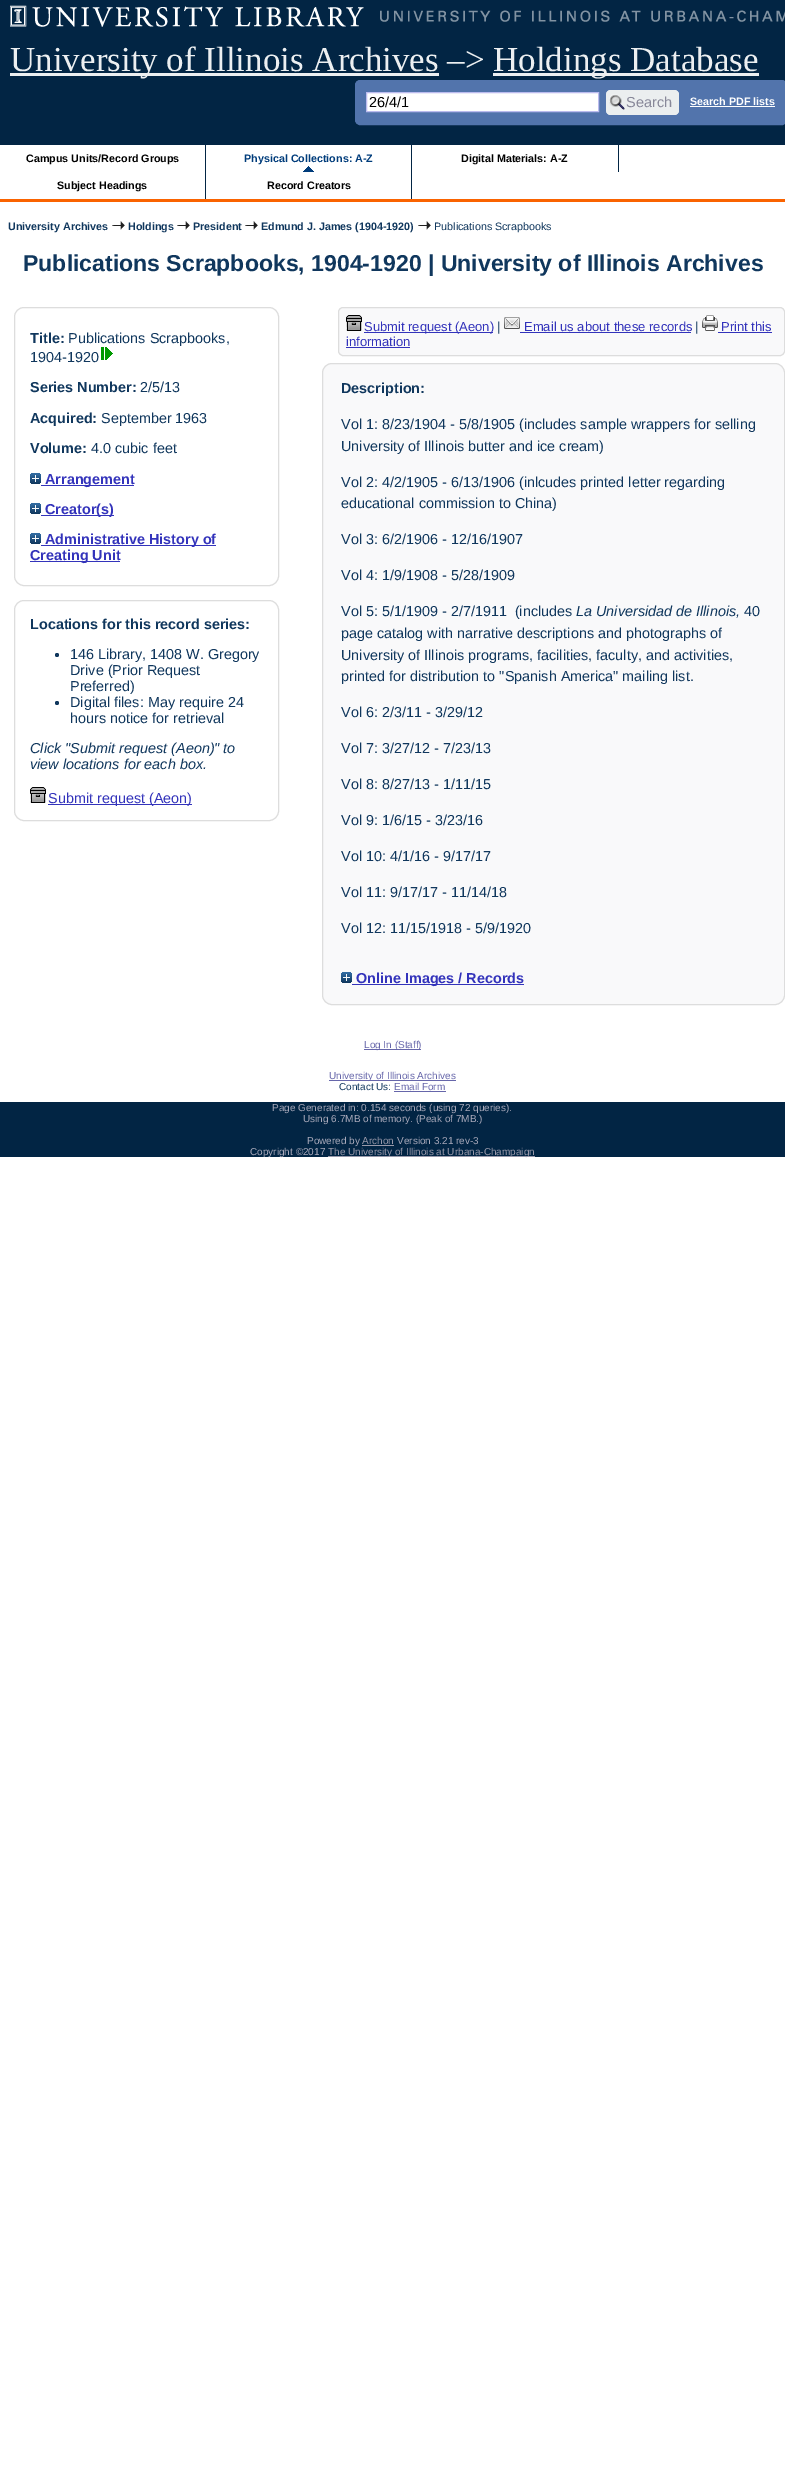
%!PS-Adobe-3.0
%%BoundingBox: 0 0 785 2485
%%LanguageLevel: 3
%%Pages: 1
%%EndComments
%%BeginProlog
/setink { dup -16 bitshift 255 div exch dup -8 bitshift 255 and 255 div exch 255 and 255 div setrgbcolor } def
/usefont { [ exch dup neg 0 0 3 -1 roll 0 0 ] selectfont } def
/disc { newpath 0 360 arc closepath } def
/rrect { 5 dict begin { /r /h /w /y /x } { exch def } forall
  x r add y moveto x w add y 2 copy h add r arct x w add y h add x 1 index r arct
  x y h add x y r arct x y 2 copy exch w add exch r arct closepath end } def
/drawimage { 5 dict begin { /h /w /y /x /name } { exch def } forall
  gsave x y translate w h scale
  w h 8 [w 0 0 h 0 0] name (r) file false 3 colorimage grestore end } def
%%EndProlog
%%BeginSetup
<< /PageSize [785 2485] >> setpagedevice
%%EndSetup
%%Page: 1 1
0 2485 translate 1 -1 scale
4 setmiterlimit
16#FFFFFF setink
0 0 785 2485 rectfill
16#022544 setink
0 0 785 145 rectfill
(img1.raw) 10 5 775 22 drawimage
16#FA6300 setink
0 199 785 3 rectfill
16#ECEFF1 setink
10 73 429 3 rectfill
/LiberationSerif-Regular 35 usefont
10 71 moveto (University of Illinois Archives –>) show
493 73 266 3 rectfill
493 71 moveto (Holdings Database) show
16#5274AC setink
355.5 80.5 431 44 4.5 rrect gsave fill grestore
stroke
16#FFFFFF setink
366.5 92.5 moveto 598.5 92.5 lineto 598.5 111.5 lineto 366.5 111.5 lineto closepath gsave fill grestore
16#BBBBEE setink
stroke
/LiberationSans-Regular 14.5 usefont
16#000000 setink
369 107 moveto (26/4/1) show
16#EBEEEF setink
606 90 73 25 5 rrect fill
(img2.raw) 609 94 16 16 drawimage
611 90 moveto 674 90 lineto 677 90 679 92 679 95 curveto 679 110 lineto 679 113 677 115 674 115 curveto 611 115 lineto 608 115 606 113 606 110 curveto 606 95 lineto 606 92 608 90 611 90 curveto closepath 611 91 moveto 674 91 lineto 676 91 678 93 678 95 curveto 678 110 lineto 678 112 676 114 674 114 curveto 611 114 lineto 608 114 606 112 606 110 curveto 606 95 lineto 606 93 608 91 611 91 curveto closepath eofill
16#888899 setink
626 107 moveto (Search) show
/LiberationSans-Bold 10.75 usefont
16#FFFFFF setink
690 105 moveto (Search PDF lists) show
690 106 85 1 rectfill
16#022544 setink
205 145 1 54 rectfill
16#000000 setink
26 162 moveto (Campus Units/Record Groups) show
(img3.raw) 303 166 11 6 drawimage
16#022544 setink
411 145 1 54 rectfill
16#003C7B setink
244 162 moveto (Physical Collections: A-Z) show
16#022544 setink
618 145 1 27 rectfill
16#000000 setink
[
    [(Digital Materials: A-Z) 461 162]
    [(Subject Headings) 57 189]
    [(Record Creators) 267 189]
] { aload pop moveto show } forall
16#10375D setink
8 230 moveto (University Archives) show
(img4.raw) 112 221 13 9 drawimage
128 230 moveto (Holdings) show
(img4.raw) 177 221 13 9 drawimage
193 230 moveto (President) show
(img4.raw) 245 221 13 9 drawimage
261 230 moveto (Edmund J. James \(1904-1920\)) show
(img4.raw) 418 221 13 9 drawimage
/LiberationSans-Regular 10.75 usefont
434 230 moveto (Publications Scrapbooks) show
/LiberationSans-Bold 23.05 usefont
23 271 moveto (Publications Scrapbooks, 1904-1920 | University of Illinois Archives) show
16#DDDDDD setink
14.5 307.5 264 278 9.5 rrect stroke
/LiberationSans-Bold 14.4 usefont
16#10375D setink
30 343 moveto (Title:) show
/LiberationSans-Regular 14.4 usefont
68 343 moveto (Publications Scrapbooks,) show
30 362 moveto (1904-1920) show
(img5.raw) 101 347 12 13 drawimage
/LiberationSans-Bold 14.4 usefont
30 392 moveto (Series Number:) show
/LiberationSans-Regular 14.4 usefont
140 392 moveto (2/5/13) show
/LiberationSans-Bold 14.4 usefont
30 423 moveto (Acquired:) show
/LiberationSans-Regular 14.4 usefont
101 423 moveto (September 1963) show
/LiberationSans-Bold 14.4 usefont
30 453 moveto (Volume:) show
/LiberationSans-Regular 14.4 usefont
91 453 moveto (4.0 cubic feet) show
(img6.raw) 30 473 11 11 drawimage
16#3333BB setink
41 485 93 1 rectfill
/LiberationSans-Bold 14.4 usefont
45 484 moveto (Arrangement) show
(img6.raw) 30 503 11 11 drawimage
41 515 73 1 rectfill
45 514 moveto (Creator\(s\)) show
(img6.raw) 30 533 11 11 drawimage
41 545 175 1 rectfill
45 544 moveto (Administrative History of) show
30 561 90 1 rectfill
30 560 moveto (Creating Unit) show
16#DDDDDD setink
14.5 600.5 264 220 9.5 rrect stroke
16#10375D setink
30 629 moveto (Locations for this record series:) show
57 655 2 disc fill
/LiberationSans-Regular 14.4 usefont
[
    [(146 Library, 1408 W. Gregory) 70 659]
    [(Drive \(Prior Request) 70 675]
    [(Preferred\)) 70 691]
] { aload pop moveto show } forall
57 703 2 disc fill
70 707 moveto (Digital files: May require 24) show
70 723 moveto (hours notice for retrieval) show
/LiberationSans-Italic 14.4 usefont
30 753 moveto (Click "Submit request \(Aeon\)" to) show
30 769 moveto (view locations for each box.) show
(img7.raw) 30 787 16 16 drawimage
16#3333BB setink
48 804 144 1 rectfill
/LiberationSans-Regular 14.4 usefont
48 803 moveto (Submit request \(Aeon\)) show
16#F9F9FA setink
338.5 307.5 446 48 4.5 rrect gsave fill grestore
16#DDDDDD setink
stroke
(img8.raw) 346 315 16 16 drawimage
16#3333BB setink
364 332 129 1 rectfill
/LiberationSans-Regular 13 usefont
364 331 moveto (Submit request \(Aeon\)) show
16#10375D setink
497 331 moveto (|) show
(img9.raw) 504 317 16 12 drawimage
16#3333BB setink
524 331 moveto (Email us about these records) show
520 332 171 1 rectfill
16#10375D setink
695 331 moveto (|) show
(img10.raw) 702 315 16 16 drawimage
16#3333BB setink
721 331 moveto (Print this) show
718 332 54 1 rectfill
346 346 moveto (information) show
346 347 64 1 rectfill
16#F9F9FA setink
322.5 363.5 462 641 9.5 rrect gsave fill grestore
16#DDDDDD setink
stroke
/LiberationSans-Bold 14.4 usefont
16#10375D setink
341 393 moveto (Description:) show
/LiberationSans-Regular 14.4 usefont
[
    [(Vol 1: 8/23/1904 - 5/8/1905 \(includes sample wrappers for selling) 341 429]
    [(University of Illinois butter and ice cream\)) 341 451]
    [(Vol 2: 4/2/1905 - 6/13/1906 \(inlcudes printed letter regarding) 341 487]
    [(educational commission to China\)) 341 508]
    [(Vol 3: 6/2/1906 - 12/16/1907) 341 544]
    [(Vol 4: 1/9/1908 - 5/28/1909) 341 580]
    [(Vol 5: 5/1/1909 - 2/7/1911  \(includes) 341 616]
] { aload pop moveto show } forall
/LiberationSans-Italic 14.4 usefont
576 616 moveto (La Universidad de Illinois,) show
/LiberationSans-Regular 14.4 usefont
[
    [(40) 744 616]
    [(page catalog with narrative descriptions and photographs of) 341 638]
    [(University of Illinois programs, facilities, faculty, and activities,) 341 660]
    [(printed for distribution to "Spanish America" mailing list.) 341 681]
    [(Vol 6: 2/3/11 - 3/29/12) 341 717]
    [(Vol 7: 3/27/12 - 7/23/13) 341 753]
    [(Vol 8: 8/27/13 - 1/11/15) 341 789]
    [(Vol 9: 1/6/15 - 3/23/16) 341 825]
    [(Vol 10: 4/1/16 - 9/17/17) 341 861]
    [(Vol 11: 9/17/17 - 11/14/18) 341 897]
    [(Vol 12: 11/15/1918 - 5/9/1920) 341 933]
] { aload pop moveto show } forall
(img11.raw) 341 972 11 11 drawimage
16#3333BB setink
352 984 172 1 rectfill
/LiberationSans-Bold 14.4 usefont
356 983 moveto (Online Images / Records) show
16#6666AA setink
364 1049 57 1 rectfill
/LiberationSans-Regular 10 usefont
364 1048 moveto (Log In \(Staff\)) show
329 1080 127 1 rectfill
329 1079 moveto (University of Illinois Archives) show
16#10375D setink
339 1090 moveto (Contact Us:) show
16#6666AA setink
394 1090 moveto (Email Form) show
394 1091 52 1 rectfill
16#022544 setink
0 1102 785 55 rectfill
16#AAAABB setink
[
    [(Page Generated in: 0.154 seconds \(using 72 queries\).) 272 1111]
    [(Using 6.7MB of memory. \(Peak of 7MB.\)) 303 1122]
    [(Powered by) 307 1144]
] { aload pop moveto show } forall
16#9999AA setink
362 1144 moveto (Archon) show
362 1145 32 1 rectfill
16#AAAABB setink
397 1144 moveto (Version 3.21 rev-3) show
250 1155 moveto (Copyright ©2017) show
16#9999AA setink
328 1156 207 1 rectfill
328 1155 moveto (The University of Illinois at Urbana-Champaign) show
showpage
%%EOF
